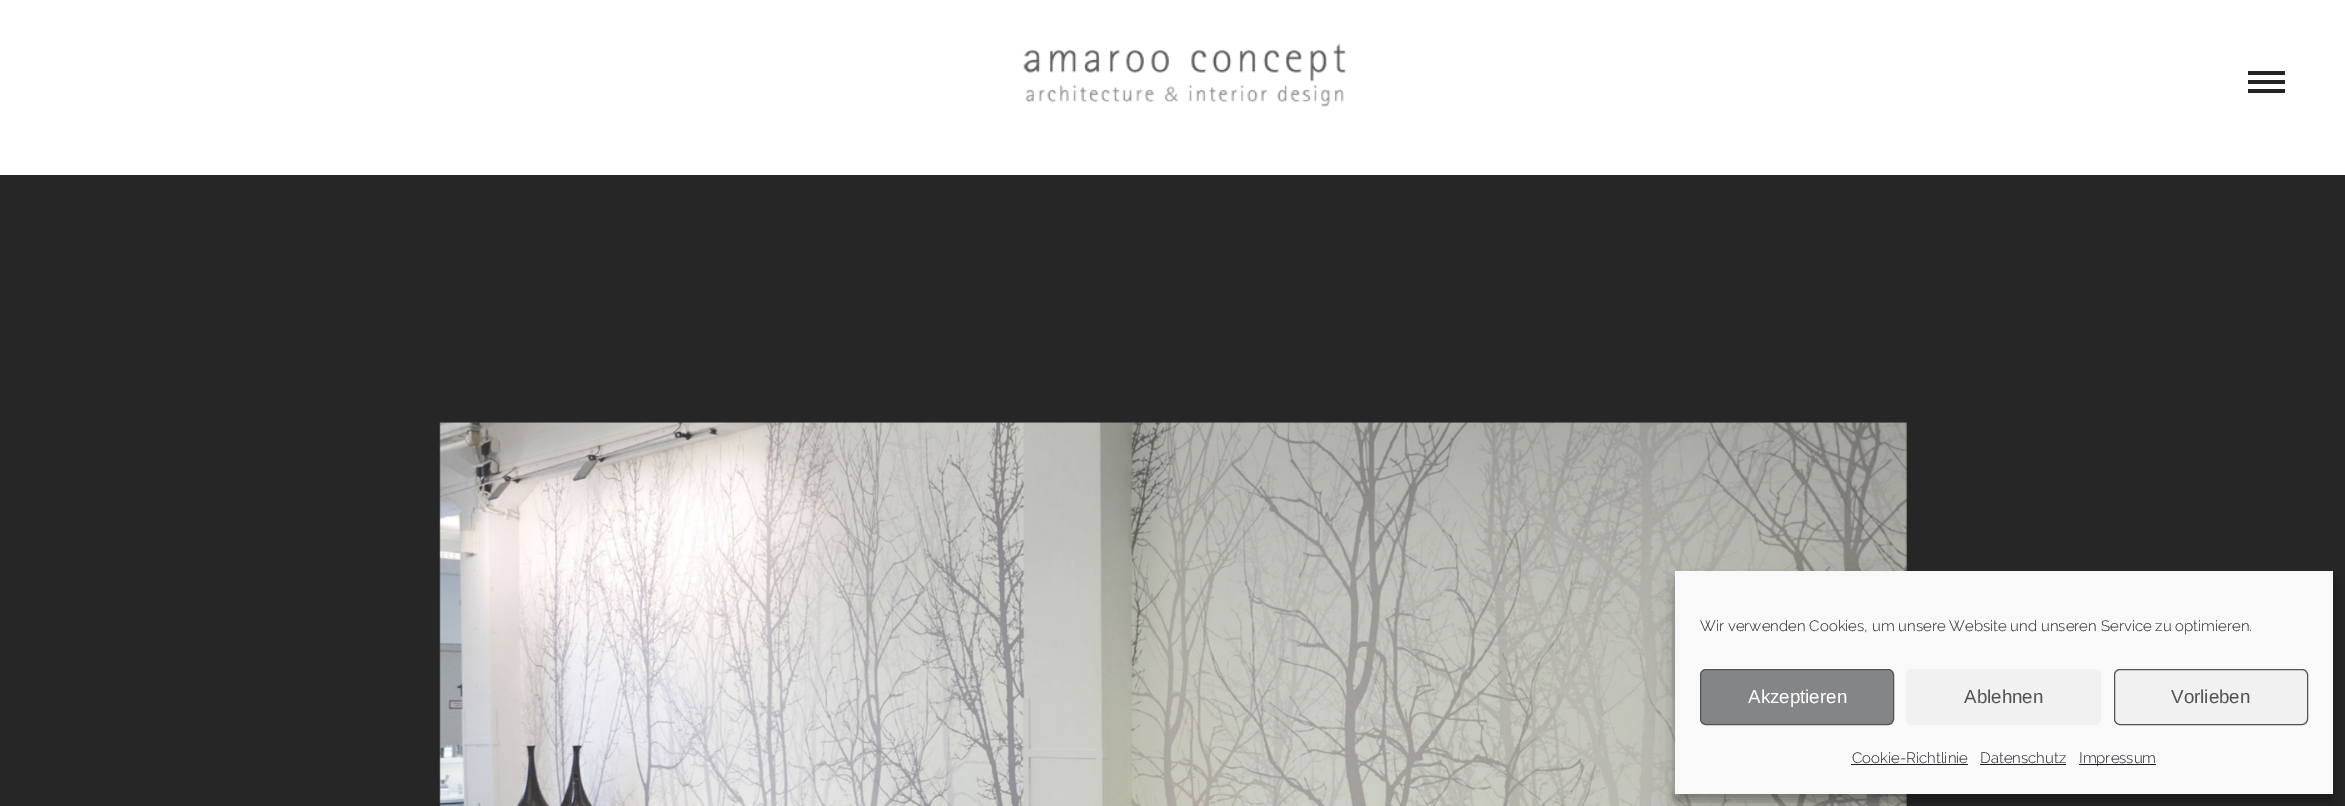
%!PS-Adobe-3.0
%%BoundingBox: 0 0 2345 806
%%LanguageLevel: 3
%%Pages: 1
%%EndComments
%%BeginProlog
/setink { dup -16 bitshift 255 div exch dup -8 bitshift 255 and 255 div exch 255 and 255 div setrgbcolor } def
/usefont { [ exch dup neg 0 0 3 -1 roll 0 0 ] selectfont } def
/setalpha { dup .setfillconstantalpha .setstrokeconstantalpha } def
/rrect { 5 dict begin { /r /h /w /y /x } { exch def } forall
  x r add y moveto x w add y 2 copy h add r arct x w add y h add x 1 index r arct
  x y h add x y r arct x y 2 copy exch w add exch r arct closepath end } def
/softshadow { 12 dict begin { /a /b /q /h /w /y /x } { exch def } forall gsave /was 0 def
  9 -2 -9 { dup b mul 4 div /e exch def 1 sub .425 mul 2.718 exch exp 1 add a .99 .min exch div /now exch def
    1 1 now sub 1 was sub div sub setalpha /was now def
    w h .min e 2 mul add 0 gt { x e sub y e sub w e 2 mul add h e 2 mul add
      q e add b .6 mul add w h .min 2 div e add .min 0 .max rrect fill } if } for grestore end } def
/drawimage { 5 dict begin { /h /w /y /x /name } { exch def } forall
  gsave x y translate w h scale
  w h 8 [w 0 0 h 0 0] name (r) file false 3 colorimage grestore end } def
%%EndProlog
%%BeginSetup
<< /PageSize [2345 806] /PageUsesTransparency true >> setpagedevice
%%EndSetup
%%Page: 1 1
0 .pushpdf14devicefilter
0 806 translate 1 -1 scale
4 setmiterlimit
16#FFFFFF setink
0 0 2345 806 rectfill
(img1.raw) 1023 43 323 64 drawimage
[
    [2248 71 37 4 16#222222]
    [2248 80 37 4 16#222222]
    [2248 89 37 4 16#222222]
    [0 175 2345 631 16#262626]
] { aload pop setink rectfill } forall
(img2.raw) 439 422 1468 384 drawimage
16#000000 setink
1675 579 658 222 0 4 0.23 softshadow
1675 584 658 222 0 12.5 0.19 softshadow
16#F9F9F9 setink
1675 571 658 223 rectfill
/Raleway-Light 15 usefont
16#191E23 setink
1700 631 moveto (Wir verwenden Cookies, um unsere Website und unseren Service zu optimieren.) show
16#848587 setink
1700.5 669.5 193 55 5.5 rrect gsave fill grestore
16#535355 setink
stroke
/LiberationSans-Regular 18.75 usefont
16#FFFFFF setink
1748 703 moveto (Akzeptieren) show
16#F1F1F1 setink
1906 669 195 56 6 rrect fill
16#535355 setink
1964 703 moveto (Ablehnen) show
16#F1F1F1 setink
2114.5 669.5 193 55 5.5 rrect gsave fill grestore
16#535355 setink
stroke
2171 703 moveto (Vorlieben) show
/Raleway-Light 15 usefont
16#191E23 setink
1852 763 moveto (Cookie-Richtlinie) show
1851 764 117 1 rectfill
1980 763 moveto (Datenschutz) show
1980 764 86 1 rectfill
2079 764 77 1 rectfill
2079 763 moveto (Impressum) show
.poppdf14devicefilter showpage
%%EOF
